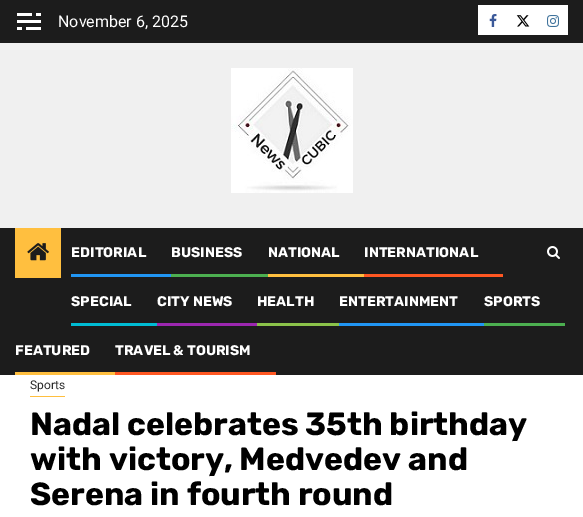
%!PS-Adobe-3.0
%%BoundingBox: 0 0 583 517
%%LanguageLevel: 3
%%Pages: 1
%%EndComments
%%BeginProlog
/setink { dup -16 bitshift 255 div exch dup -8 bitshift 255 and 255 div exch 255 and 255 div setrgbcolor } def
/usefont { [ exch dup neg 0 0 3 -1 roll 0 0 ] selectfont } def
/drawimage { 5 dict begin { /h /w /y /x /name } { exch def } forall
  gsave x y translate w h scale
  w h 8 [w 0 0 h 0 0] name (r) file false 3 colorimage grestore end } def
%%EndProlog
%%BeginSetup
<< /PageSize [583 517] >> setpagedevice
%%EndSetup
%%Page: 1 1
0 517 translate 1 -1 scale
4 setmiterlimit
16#FFFFFF setink
0 0 583 517 rectfill
[
    [0 43 583 185 16#F0F0F0]
    [0 0 583 43 16#1C1C1C]
    [36 13 5 3 16#FFFFFF]
    [17 13 15 3 16#FFFFFF]
    [17 20 24 3 16#FFFFFF]
    [26 27 15 3 16#FFFFFF]
    [17 27 5 3 16#FFFFFF]
] { aload pop setink rectfill } forall
/Roboto-Regular 16 usefont
58 27 moveto (November 6, 2025) show
478 5 90 30 rectfill
(img1.raw) 489 14 8 13 drawimage
(img2.raw) 516 15 14 12 drawimage
(img3.raw) 547 15 12 12 drawimage
(img4.raw) 231 68 122 125 drawimage
16#1C1C1C setink
0 228 583 147 rectfill
16#FFBF3F setink
15 228 46 50 rectfill
(img5.raw) 27 243 22 18 drawimage
/Rubik-Bold 14 usefont
16#FFFFFF setink
71 257 moveto (EDITORIAL) show
16#2196F3 setink
71 274 100 3 rectfill
16#FFFFFF setink
171 257 moveto (BUSINESS) show
16#4CAF50 setink
171 274 97 3 rectfill
16#FFFFFF setink
268 257 moveto (NATIONAL) show
16#FFBF3F setink
268 274 96 3 rectfill
16#FFFFFF setink
364 257 moveto (INTERNATIONAL) show
16#FF5722 setink
364 274 139 3 rectfill
16#FFFFFF setink
71 306 moveto (SPECIAL) show
16#00BCD4 setink
71 323 86 3 rectfill
16#FFFFFF setink
157 306 moveto (CITY NEWS) show
16#9C27B0 setink
157 323 100 3 rectfill
16#FFFFFF setink
257 306 moveto (HEALTH) show
16#8BC34A setink
257 323 82 3 rectfill
16#FFFFFF setink
339 306 moveto (ENTERTAINMENT) show
16#2196F3 setink
339 323 145 3 rectfill
16#FFFFFF setink
484 306 moveto (SPORTS) show
16#4CAF50 setink
484 323 81 3 rectfill
16#FFFFFF setink
15 355 moveto (FEATURED) show
16#FFBF3F setink
15 372 100 3 rectfill
16#FFFFFF setink
115 355 moveto (TRAVEL & TOURISM) show
16#FF5722 setink
115 372 161 3 rectfill
(img6.raw) 547 246 13 13 drawimage
16#FFBF3F setink
30 396 35 1 rectfill
/Roboto-Regular 12 usefont
16#2B2B2B setink
30 389 moveto (Sports) show
/Rubik-Bold 32 usefont
16#000000 setink
[
    [(Nadal celebrates 35th birthday) 30 435]
    [(with victory, Medvedev and) 30 470]
    [(Serena in fourth round) 30 505]
] { aload pop moveto show } forall
showpage
%%EOF
